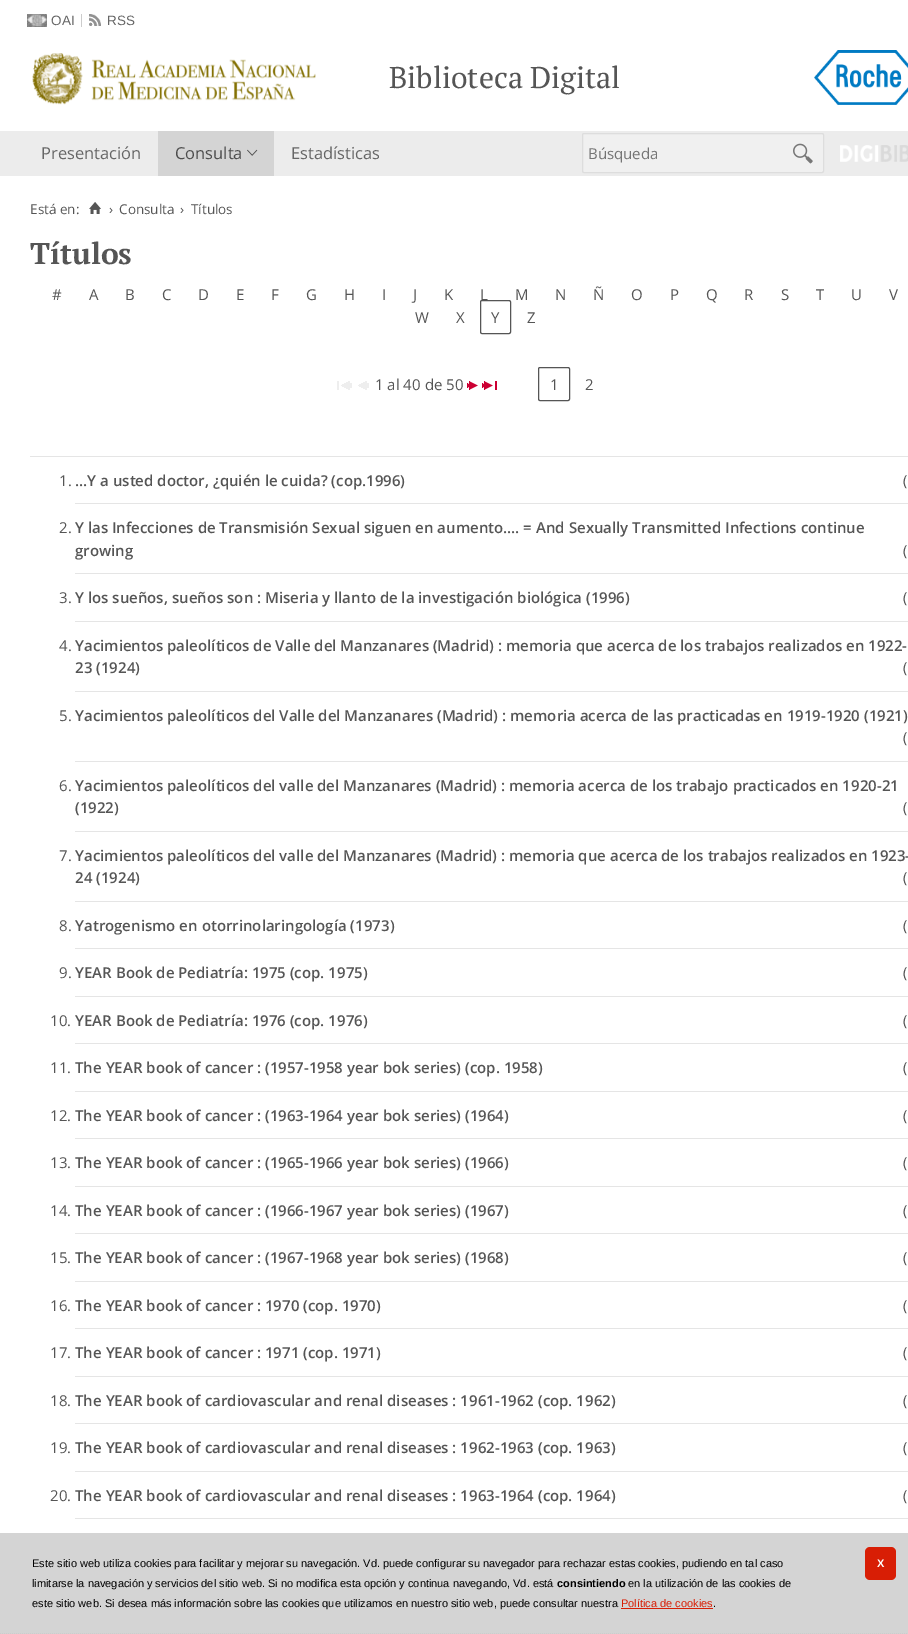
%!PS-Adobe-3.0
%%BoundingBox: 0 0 908 1634
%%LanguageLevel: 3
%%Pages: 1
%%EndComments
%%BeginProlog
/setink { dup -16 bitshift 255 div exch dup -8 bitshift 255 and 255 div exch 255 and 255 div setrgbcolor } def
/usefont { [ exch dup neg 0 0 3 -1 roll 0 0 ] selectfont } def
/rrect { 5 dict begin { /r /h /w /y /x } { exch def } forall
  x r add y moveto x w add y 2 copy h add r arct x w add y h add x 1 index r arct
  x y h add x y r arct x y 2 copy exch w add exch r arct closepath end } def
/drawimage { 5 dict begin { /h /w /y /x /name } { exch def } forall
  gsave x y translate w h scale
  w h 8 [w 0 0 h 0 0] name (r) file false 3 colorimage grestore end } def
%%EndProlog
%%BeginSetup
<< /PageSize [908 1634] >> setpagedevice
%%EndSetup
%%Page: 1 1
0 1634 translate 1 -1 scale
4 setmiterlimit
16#FFFFFF setink
0 0 908 1634 rectfill
16#D4D4D4 setink
0 1533 908 101 rectfill
(img1.raw) 27 14 20 13 drawimage
/LiberationSans-Regular 13.5 usefont
16#666666 setink
51 25 moveto (OAI) show
16#CCCCCC setink
81 14 1 13 rectfill
(img2.raw) 89 14 12 12 drawimage
16#666666 setink
107 25 moveto (RSS) show
(img3.raw) 32 53 284 52 drawimage
/PTSerif-Regular 30 usefont
16#555555 setink
389 88 moveto (Biblioteca Digital) show
(img4.raw) 814 50 94 55 drawimage
16#ECECEC setink
0 131 908 45 rectfill
/OpenSans-Regular 16.5 usefont
16#666666 setink
41 159 moveto (Presentación) show
16#D4D4D4 setink
158 131 116 45 rectfill
16#4D4D4D setink
175 159 moveto (Consulta) show
(img5.raw) 247 149 11 7 drawimage
16#666666 setink
291 159 moveto (Estadísticas) show
16#F0F0F0 setink
582.5 133.5 241 39 1.5 rrect gsave fill grestore
16#DDDDDD setink
stroke
/OpenSans-Regular 15 usefont
16#757575 setink
588 159 moveto (Búsqueda) show
(img6.raw) 793 143 20 21 drawimage
(img7.raw) 840 145 68 17 drawimage
/OpenSans-Regular 13.5 usefont
16#555555 setink
30 214 moveto (Está en:) show
(img8.raw) 89 202 12 12 drawimage
[
    [(›) 109 214]
    [(Consulta) 119 214]
    [(›) 180 214]
    [(Títulos) 191 214]
] { aload pop moveto show } forall
/PTSerif-Bold 30 usefont
30 264 moveto (Títulos) show
/OpenSans-Regular 15 usefont
[
    [(#) 52 300]
    [(A) 89 300]
    [(B) 125 300]
    [(C) 162 300]
    [(D) 198 300]
    [(E) 236 300]
    [(F) 271 300]
    [(G) 306 300]
    [(H) 344 300]
    [(I) 382 300]
    [(J) 413 300]
    [(K) 444 300]
    [(L) 480 300]
    [(M) 515 300]
    [(N) 555 300]
    [(Ñ) 593 300]
    [(O) 631 300]
    [(P) 670 300]
    [(Q) 706 300]
    [(R) 744 300]
    [(S) 781 300]
    [(T) 816 300]
    [(U) 851 300]
    [(V) 889 300]
    [(W) 415 323]
    [(X) 456 323]
] { aload pop moveto show } forall
480.5 300.5 30 33 1.5 rrect stroke
491 323 moveto (Y) show
527 323 moveto (Z) show
(img9.raw) 337 381 15 9 drawimage
(img10.raw) 358 381 11 9 drawimage
375 390 moveto (1 al 40 de 50) show
(img11.raw) 467 381 11 9 drawimage
(img12.raw) 482 381 15 9 drawimage
538.5 367.5 31 33 1.5 rrect stroke
550 390 moveto (1) show
585 390 moveto (2) show
16#E5E5E5 setink
30 456 878 1 rectfill
16#555555 setink
59 486 moveto (1.) show
/OpenSans-SemiBold 15 usefont
75 486 moveto (...Y a usted doctor, ¿quién le cuida? \(cop.1996\)) show
/OpenSans-Regular 15 usefont
903 486 moveto (\() show
16#E5E5E5 setink
75 503 833 1 rectfill
16#555555 setink
59 533 moveto (2.) show
/OpenSans-SemiBold 15 usefont
75 533 moveto (Y las Infecciones de Transmisión Sexual siguen en aumento.... = And Sexually Transmitted Infections continue) show
75 556 moveto (growing) show
/OpenSans-Regular 15 usefont
903 556 moveto (\() show
16#E5E5E5 setink
75 573 833 1 rectfill
16#555555 setink
59 603 moveto (3.) show
/OpenSans-SemiBold 15 usefont
75 603 moveto (Y los sueños, sueños son : Miseria y llanto de la investigación biológica \(1996\)) show
/OpenSans-Regular 15 usefont
903 603 moveto (\() show
16#E5E5E5 setink
75 621 833 1 rectfill
16#555555 setink
59 651 moveto (4.) show
/OpenSans-SemiBold 15 usefont
75 651 moveto (Yacimientos paleolíticos de Valle del Manzanares \(Madrid\) : memoria que acerca de los trabajos realizados en 1922-) show
75 673 moveto (23 \(1924\)) show
/OpenSans-Regular 15 usefont
903 673 moveto (\() show
16#E5E5E5 setink
75 691 833 1 rectfill
16#555555 setink
59 721 moveto (5.) show
/OpenSans-SemiBold 15 usefont
75 721 moveto (Yacimientos paleolíticos del Valle del Manzanares \(Madrid\) : memoria acerca de las practicadas en 1919-1920 \(1921\)) show
/OpenSans-Regular 15 usefont
903 743 moveto (\() show
16#E5E5E5 setink
75 761 833 1 rectfill
16#555555 setink
59 791 moveto (6.) show
/OpenSans-SemiBold 15 usefont
75 791 moveto (Yacimientos paleolíticos del valle del Manzanares \(Madrid\) : memoria acerca de los trabajo practicados en 1920-21) show
75 813 moveto (\(1922\)) show
/OpenSans-Regular 15 usefont
903 813 moveto (\() show
16#E5E5E5 setink
75 831 833 1 rectfill
16#555555 setink
59 861 moveto (7.) show
/OpenSans-SemiBold 15 usefont
75 861 moveto (Yacimientos paleolíticos del valle del Manzanares \(Madrid\) : memoria que acerca de los trabajos realizados en 1923-) show
75 883 moveto (24 \(1924\)) show
/OpenSans-Regular 15 usefont
903 883 moveto (\() show
16#E5E5E5 setink
75 901 833 1 rectfill
16#555555 setink
59 931 moveto (8.) show
/OpenSans-SemiBold 15 usefont
75 931 moveto (Yatrogenismo en otorrinolaringología \(1973\)) show
/OpenSans-Regular 15 usefont
903 931 moveto (\() show
16#E5E5E5 setink
75 948 833 1 rectfill
16#555555 setink
59 978 moveto (9.) show
/OpenSans-SemiBold 15 usefont
75 978 moveto (YEAR Book de Pediatría: 1975 \(cop. 1975\)) show
/OpenSans-Regular 15 usefont
903 978 moveto (\() show
16#E5E5E5 setink
75 996 833 1 rectfill
16#555555 setink
50 1026 moveto (10.) show
/OpenSans-SemiBold 15 usefont
75 1026 moveto (YEAR Book de Pediatría: 1976 \(cop. 1976\)) show
/OpenSans-Regular 15 usefont
903 1026 moveto (\() show
16#E5E5E5 setink
75 1043 833 1 rectfill
16#555555 setink
50 1073 moveto (11.) show
/OpenSans-SemiBold 15 usefont
75 1073 moveto (The YEAR book of cancer : \(1957-1958 year bok series\) \(cop. 1958\)) show
/OpenSans-Regular 15 usefont
903 1073 moveto (\() show
16#E5E5E5 setink
75 1091 833 1 rectfill
16#555555 setink
50 1121 moveto (12.) show
/OpenSans-SemiBold 15 usefont
75 1121 moveto (The YEAR book of cancer : \(1963-1964 year bok series\) \(1964\)) show
/OpenSans-Regular 15 usefont
903 1121 moveto (\() show
16#E5E5E5 setink
75 1138 833 1 rectfill
16#555555 setink
50 1168 moveto (13.) show
/OpenSans-SemiBold 15 usefont
75 1168 moveto (The YEAR book of cancer : \(1965-1966 year bok series\) \(1966\)) show
/OpenSans-Regular 15 usefont
903 1168 moveto (\() show
16#E5E5E5 setink
75 1186 833 1 rectfill
16#555555 setink
50 1216 moveto (14.) show
/OpenSans-SemiBold 15 usefont
75 1216 moveto (The YEAR book of cancer : \(1966-1967 year bok series\) \(1967\)) show
/OpenSans-Regular 15 usefont
903 1216 moveto (\() show
16#E5E5E5 setink
75 1233 833 1 rectfill
16#555555 setink
50 1263 moveto (15.) show
/OpenSans-SemiBold 15 usefont
75 1263 moveto (The YEAR book of cancer : \(1967-1968 year bok series\) \(1968\)) show
/OpenSans-Regular 15 usefont
903 1263 moveto (\() show
16#E5E5E5 setink
75 1281 833 1 rectfill
16#555555 setink
50 1311 moveto (16.) show
/OpenSans-SemiBold 15 usefont
75 1311 moveto (The YEAR book of cancer : 1970 \(cop. 1970\)) show
/OpenSans-Regular 15 usefont
903 1311 moveto (\() show
16#E5E5E5 setink
75 1328 833 1 rectfill
16#555555 setink
50 1358 moveto (17.) show
/OpenSans-SemiBold 15 usefont
75 1358 moveto (The YEAR book of cancer : 1971 \(cop. 1971\)) show
/OpenSans-Regular 15 usefont
903 1358 moveto (\() show
16#E5E5E5 setink
75 1376 833 1 rectfill
16#555555 setink
50 1406 moveto (18.) show
/OpenSans-SemiBold 15 usefont
75 1406 moveto (The YEAR book of cardiovascular and renal diseases : 1961-1962 \(cop. 1962\)) show
/OpenSans-Regular 15 usefont
903 1406 moveto (\() show
16#E5E5E5 setink
75 1423 833 1 rectfill
16#555555 setink
50 1453 moveto (19.) show
/OpenSans-SemiBold 15 usefont
75 1453 moveto (The YEAR book of cardiovascular and renal diseases : 1962-1963 \(cop. 1963\)) show
/OpenSans-Regular 15 usefont
903 1453 moveto (\() show
16#E5E5E5 setink
75 1471 833 1 rectfill
16#555555 setink
50 1501 moveto (20.) show
/OpenSans-SemiBold 15 usefont
75 1501 moveto (The YEAR book of cardiovascular and renal diseases : 1963-1964 \(cop. 1964\)) show
/OpenSans-Regular 15 usefont
903 1501 moveto (\() show
16#E5E5E5 setink
75 1518 833 1 rectfill
16#CCCCCC setink
[1 1] 0 setdash
0 1633.5 moveto 908 1633.5 lineto stroke
/LiberationSans-Regular 11 usefont
16#000000 setink
32 1567 moveto (Este sitio web utiliza cookies para facilitar y mejorar su navegación. Vd. puede configurar su navegador para rechazar estas cookies, pudiendo en tal caso) show
32 1587 moveto (limitarse la navegación y servicios del sitio web. Si no modifica esta opción y continua navegando, Vd. está) show
/LiberationSans-Bold 11 usefont
557 1587 moveto (consintiendo) show
/LiberationSans-Regular 11 usefont
628 1587 moveto (en la utilización de las cookies de) show
32 1607 moveto (este sitio web. Si desea más información sobre las cookies que utilizamos en nuestro sitio web, puede consultar nuestra) show
16#D81E05 setink
621 1607 moveto (Política de cookies) show
16#000000 setink
713 1607 moveto (.) show
16#D81E05 setink
621 1608 92 1 rectfill
865 1547 31 33 5 rrect fill
/LiberationSans-Bold 11 usefont
16#FFFFFF setink
877 1567 moveto -1 0 (X) ashow
showpage
%%EOF
